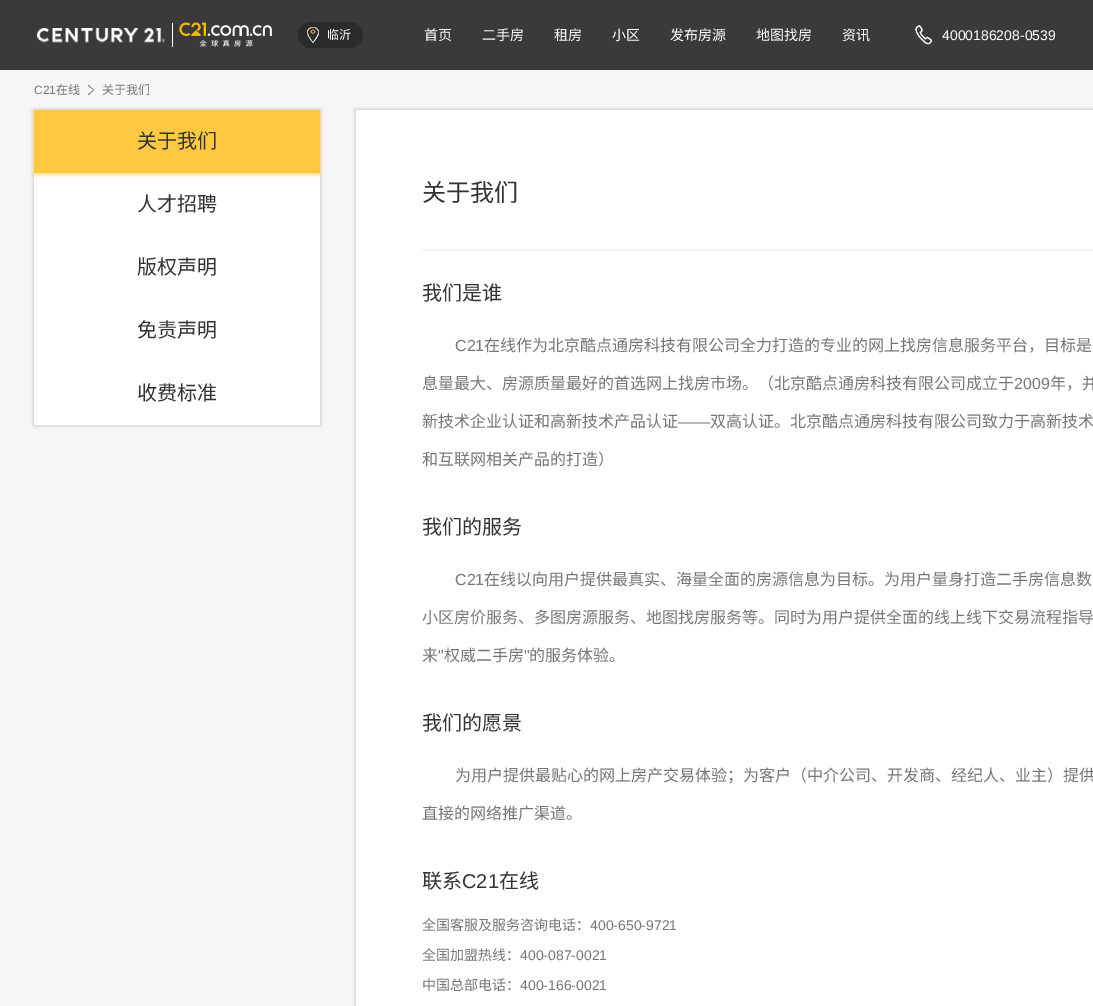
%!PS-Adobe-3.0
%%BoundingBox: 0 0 1093 1006
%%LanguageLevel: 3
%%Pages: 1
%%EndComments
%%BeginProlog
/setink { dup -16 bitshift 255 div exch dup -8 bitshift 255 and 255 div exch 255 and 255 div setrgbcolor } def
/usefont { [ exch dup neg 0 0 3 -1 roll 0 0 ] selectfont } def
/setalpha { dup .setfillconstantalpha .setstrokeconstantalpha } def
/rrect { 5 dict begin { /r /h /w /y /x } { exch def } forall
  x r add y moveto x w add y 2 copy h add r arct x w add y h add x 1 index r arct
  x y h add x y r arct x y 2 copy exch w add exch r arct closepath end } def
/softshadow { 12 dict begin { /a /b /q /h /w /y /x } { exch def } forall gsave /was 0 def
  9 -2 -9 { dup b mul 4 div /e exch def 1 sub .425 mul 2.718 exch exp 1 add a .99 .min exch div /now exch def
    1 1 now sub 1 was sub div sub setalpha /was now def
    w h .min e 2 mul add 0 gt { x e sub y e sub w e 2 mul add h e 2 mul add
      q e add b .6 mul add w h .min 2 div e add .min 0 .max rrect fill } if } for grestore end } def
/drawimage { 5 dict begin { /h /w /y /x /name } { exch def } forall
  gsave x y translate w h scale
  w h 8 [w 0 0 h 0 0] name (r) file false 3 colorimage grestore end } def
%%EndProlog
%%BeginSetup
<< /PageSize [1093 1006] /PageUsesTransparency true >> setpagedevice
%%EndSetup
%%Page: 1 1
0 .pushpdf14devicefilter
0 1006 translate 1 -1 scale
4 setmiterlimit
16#3A3A3A setink
0 0 1093 1006 rectfill
(img1.raw) 37 22 235 25 drawimage
16#2B2B2B setink
298 22 65 26 13 rrect fill
(img2.raw) 307 27 12 16 drawimage
/NotoSansCJKSC-Regular 12 usefont
16#FFFFFF setink
327 39 moveto (临沂) show
/NotoSansCJKSC-Regular 14 usefont
[
    [(首页) 424 40]
    [(二手房) 482 40]
    [(租房) 554 40]
    [(小区) 612 40]
    [(发布房源) 670 40]
    [(地图找房) 756 40]
    [(资讯) 842 40]
] { aload pop moveto show } forall
(img3.raw) 915 25 17 20 drawimage
/LiberationSans-Regular 14 usefont
942 40 moveto (4000186208-0539) show
16#F6F6F6 setink
0 70 1093 936 rectfill
/LiberationSans-Regular 12 usefont
16#767676 setink
34 94 moveto (C21) show
/NotoSansCJKSC-Regular 12 usefont
56 94 moveto (在线) show
(img4.raw) 88 85 6 10 drawimage
102 94 moveto (关于我们) show
16#B1B1B1 setink
34 110 286 315 0 2 1 softshadow
16#FFFFFF setink
34 173 286 252 rectfill
16#FFD878 setink
34 112 286 63 0 2 1 softshadow
16#FFC841 setink
34 110 286 63 rectfill
/NotoSansCJKSC-Regular 20 usefont
16#333333 setink
[
    [(关于我们) 137 148]
    [(人才招聘) 137 211]
    [(版权声明) 137 274]
    [(免责声明) 137 337]
    [(收费标准) 137 400]
] { aload pop moveto show } forall
16#B1B1B1 setink
356 110 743 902 0 2 1 softshadow
16#FFFFFF setink
356 110 737 896 rectfill
/NotoSansCJKSC-Regular 24 usefont
16#333333 setink
422 201 moveto (关于我们) show
16#F3F3F3 setink
422 249 671 2 rectfill
/NotoSansCJKSC-Regular 20 usefont
16#333333 setink
422 300 moveto (我们是谁) show
/LiberationSans-Regular 16 usefont
16#767676 setink
455 351 moveto (C21) show
/NotoSansCJKSC-Regular 16 usefont
484 351 moveto (在线作为北京酷点通房科技有限公司全力打造的专业的网上找房信息服务平台，目标是) show
422 389 moveto (息量最大、房源质量最好的首选网上找房市场。（北京酷点通房科技有限公司成立于) show
/LiberationSans-Regular 16 usefont
1014 389 moveto (2009) show
/NotoSansCJKSC-Regular 16 usefont
1050 389 moveto (年，并) show
422 427 moveto (新技术企业认证和高新技术产品认证) show
/LiberationSans-Regular 16 usefont
678 427 moveto (——) show
/NotoSansCJKSC-Regular 16 usefont
710 427 moveto (双高认证。北京酷点通房科技有限公司致力于高新技术) show
422 465 moveto (和互联网相关产品的打造）) show
/NotoSansCJKSC-Regular 20 usefont
16#333333 setink
422 534 moveto (我们的服务) show
/LiberationSans-Regular 16 usefont
16#767676 setink
455 585 moveto (C21) show
/NotoSansCJKSC-Regular 16 usefont
[
    [(在线以向用户提供最真实、海量全面的房源信息为目标。为用户量身打造二手房信息数) 484 585]
    [(小区房价服务、多图房源服务、地图找房服务等。同时为用户提供全面的线上线下交易流程指导) 422 623]
    [(来) 422 661]
] { aload pop moveto show } forall
/LiberationSans-Regular 16 usefont
438 661 moveto (") show
/NotoSansCJKSC-Regular 16 usefont
444 661 moveto (权威二手房) show
/LiberationSans-Regular 16 usefont
524 661 moveto (") show
/NotoSansCJKSC-Regular 16 usefont
529 661 moveto (的服务体验。) show
/NotoSansCJKSC-Regular 20 usefont
16#333333 setink
422 730 moveto (我们的愿景) show
/NotoSansCJKSC-Regular 16 usefont
16#767676 setink
455 781 moveto (为用户提供最贴心的网上房产交易体验；为客户（中介公司、开发商、经纪人、业主）提供) show
422 819 moveto (直接的网络推广渠道。) show
/NotoSansCJKSC-Regular 20 usefont
16#333333 setink
422 888 moveto (联系) show
/LiberationSans-Regular 20 usefont
462 888 moveto (C21) show
/NotoSansCJKSC-Regular 20 usefont
499 888 moveto (在线) show
/NotoSansCJKSC-Regular 14 usefont
16#767676 setink
422 930 moveto (全国客服及服务咨询电话：) show
/LiberationSans-Regular 14 usefont
590 930 moveto (400-650-9721) show
/NotoSansCJKSC-Regular 14 usefont
422 960 moveto (全国加盟热线：) show
/LiberationSans-Regular 14 usefont
520 960 moveto (400-087-0021) show
/NotoSansCJKSC-Regular 14 usefont
422 990 moveto (中国总部电话：) show
/LiberationSans-Regular 14 usefont
520 990 moveto (400-166-0021) show
.poppdf14devicefilter showpage
%%EOF
